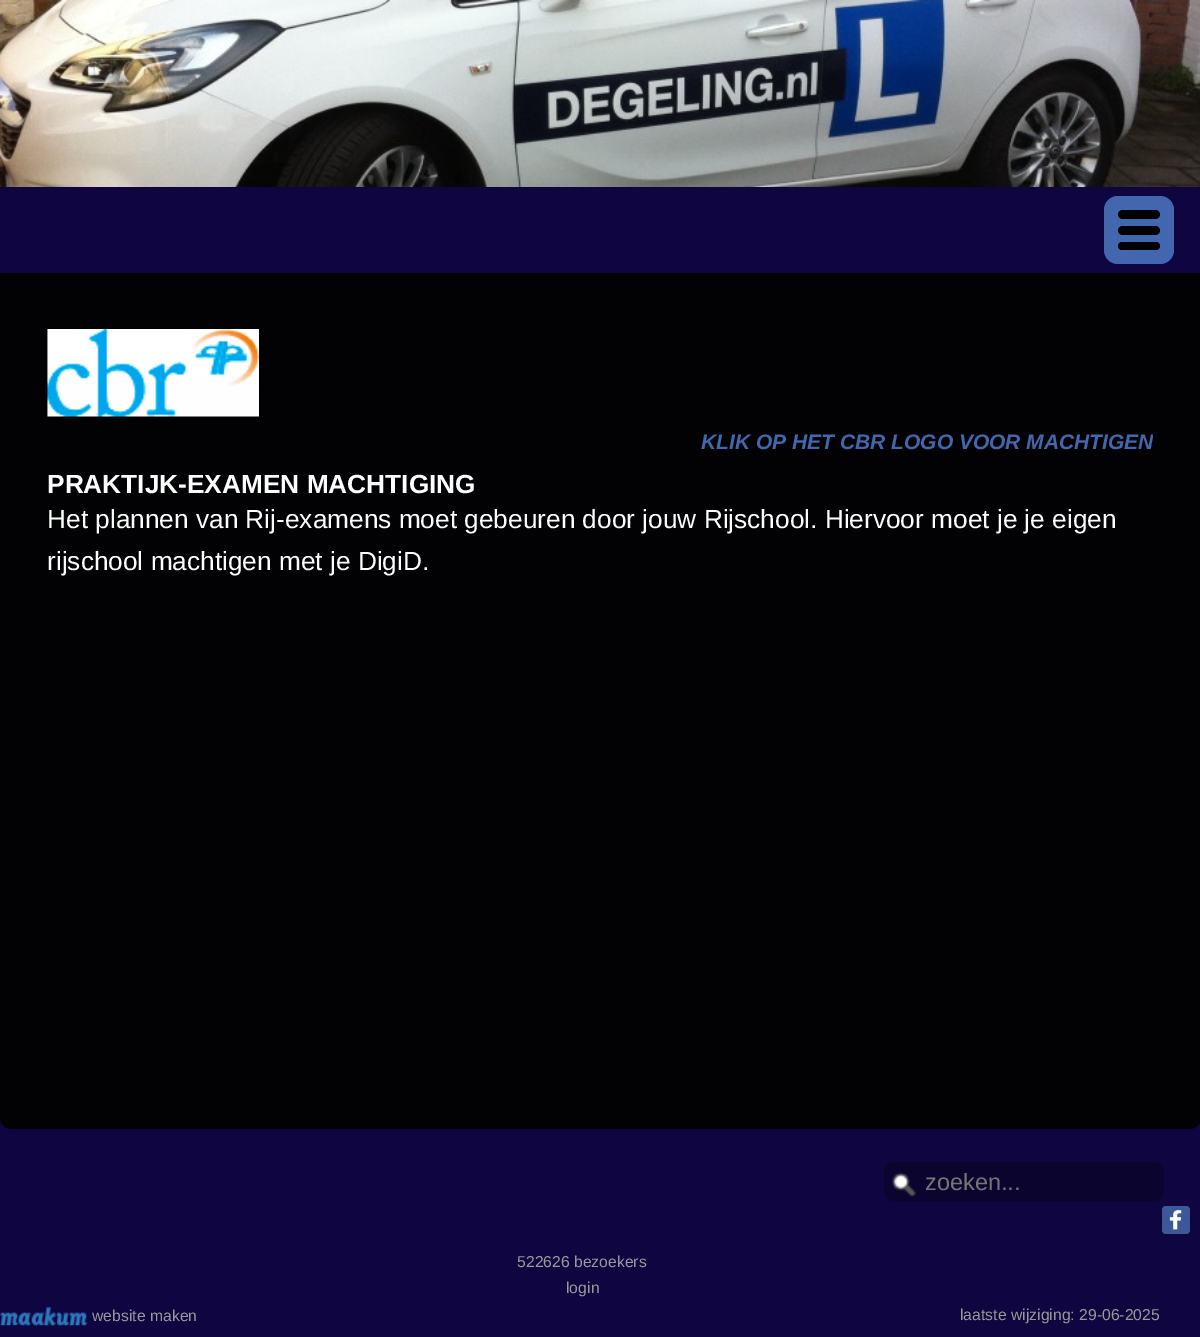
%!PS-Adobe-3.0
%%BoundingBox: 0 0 1200 1337
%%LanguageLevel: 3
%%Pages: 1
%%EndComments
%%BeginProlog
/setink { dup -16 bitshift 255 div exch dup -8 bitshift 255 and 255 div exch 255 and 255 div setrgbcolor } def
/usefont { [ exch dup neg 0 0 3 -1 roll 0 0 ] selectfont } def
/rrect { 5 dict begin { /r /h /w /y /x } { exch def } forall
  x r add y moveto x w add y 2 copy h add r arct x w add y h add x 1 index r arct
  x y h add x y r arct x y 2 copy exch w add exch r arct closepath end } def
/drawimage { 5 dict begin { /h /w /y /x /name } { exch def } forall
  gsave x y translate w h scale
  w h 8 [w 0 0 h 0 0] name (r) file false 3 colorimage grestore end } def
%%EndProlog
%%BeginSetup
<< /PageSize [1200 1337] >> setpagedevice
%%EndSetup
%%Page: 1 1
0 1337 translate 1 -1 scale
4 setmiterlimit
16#0F0541 setink
0 0 1200 1337 rectfill
(img1.raw) 0 0 1200 187 drawimage
16#4367AE setink
1104 196 70 68 14 rrect fill
16#020204 setink
1118 210 42 9 4.5 rrect fill
1118 226 42 9 4.5 rrect fill
1118 242 42 8 4 rrect fill
0 273 moveto 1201 273 lineto 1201 1118 lineto 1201 1124 1196 1129 1190 1129 curveto 11 1129 lineto 5 1129 0 1124 0 1118 curveto closepath fill
(img2.raw) 47 329 212 88 drawimage
gsave
47 320 1106 263 rectclip
/LiberationSans-BoldItalic 21 usefont
16#4367AE setink
701 449 moveto (KLIK OP HET CBR LOGO VOOR MACHTIGEN) show
grestore
/LiberationSans-Bold 26.25 usefont
16#FDFFFE setink
47 493 moveto (PRAKTIJK-EXAMEN MACHTIGING) show
/LiberationSans-Regular 26.25 usefont
47 528 moveto (Het plannen van Rij-examens moet gebeuren door jouw Rijschool. Hiervoor moet je je eigen) show
47 570 moveto (rijschool machtigen met je DigiD.) show
16#0B042F setink
884 1162 280 40 11 rrect fill
(img3.raw) 892 1172 24 25 drawimage
/LiberationSans-Regular 23.5 usefont
16#757575 setink
925 1190 moveto (zoeken...) show
16#3B5998 setink
1162 1206 28 28 4 rrect fill
(img4.raw) 1169 1210 13 20 drawimage
/LiberationSans-Regular 15.75 usefont
16#999999 setink
517 1267 moveto (522626 bezoekers) show
566 1293 moveto (login) show
(img5.raw) 0 1307 88 19 drawimage
92 1321 moveto (website maken) show
960 1320 moveto (laatste wijziging: 29-06-2025) show
showpage
%%EOF
